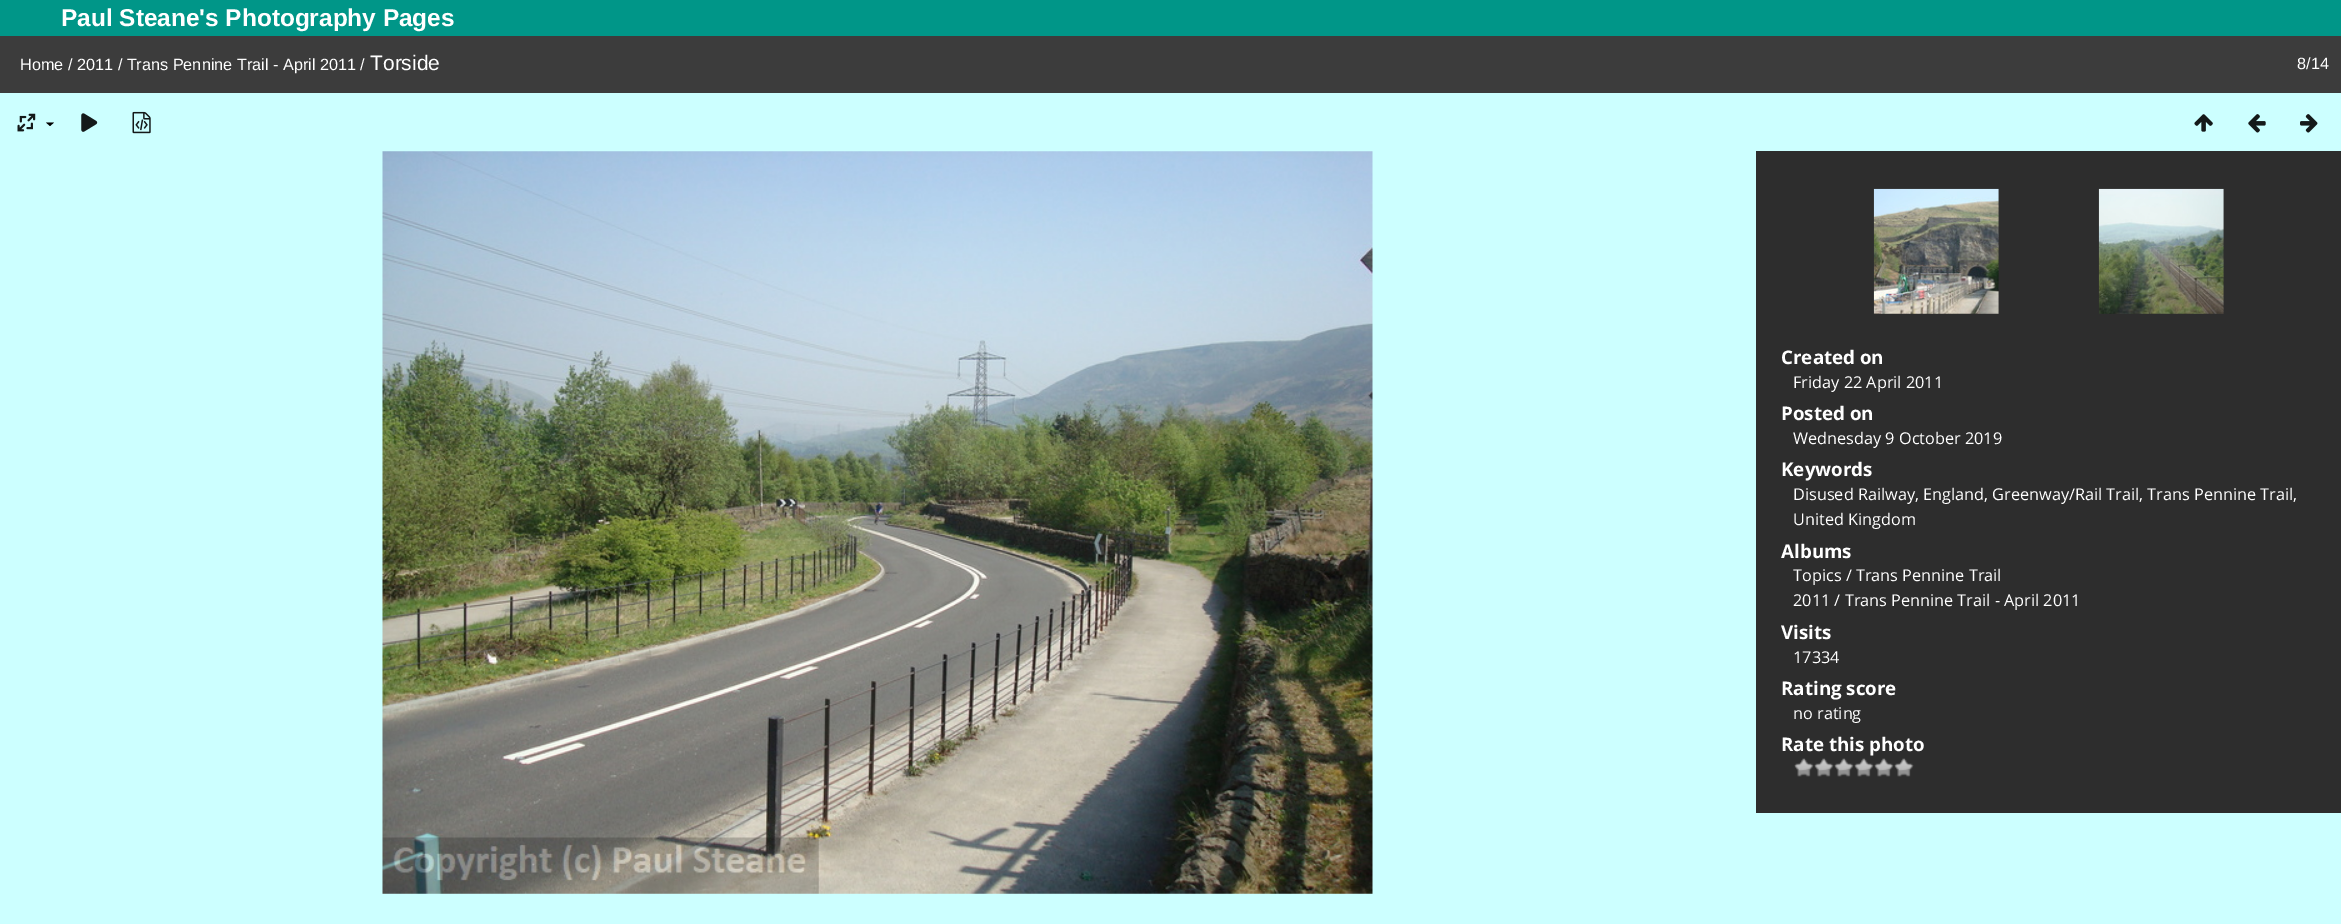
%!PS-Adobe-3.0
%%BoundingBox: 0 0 2341 924
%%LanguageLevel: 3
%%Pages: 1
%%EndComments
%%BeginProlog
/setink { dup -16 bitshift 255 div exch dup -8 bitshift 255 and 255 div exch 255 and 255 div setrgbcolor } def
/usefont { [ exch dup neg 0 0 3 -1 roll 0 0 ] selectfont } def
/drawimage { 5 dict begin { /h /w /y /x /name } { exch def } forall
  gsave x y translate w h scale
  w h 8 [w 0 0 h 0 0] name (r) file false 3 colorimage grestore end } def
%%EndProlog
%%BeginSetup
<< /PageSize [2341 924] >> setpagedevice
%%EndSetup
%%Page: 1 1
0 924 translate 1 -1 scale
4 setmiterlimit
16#CCFFFF setink
0 0 2341 924 rectfill
16#009688 setink
0 0 2341 36 rectfill
/LiberationSans-Bold 24.4 usefont
16#FFFFFF setink
61 26 moveto (Paul Steane's Photography Pages) show
16#3C3C3C setink
0 36 2341 57 rectfill
/LiberationSans-Regular 16.25 usefont
16#FFFFFF setink
20 70 moveto (Home / 2011 / Trans Pennine Trail - April 2011 /) show
/LiberationSans-Regular 21 usefont
370 70 moveto (Torside) show
/LiberationSans-Regular 16.25 usefont
2297 69 moveto (8/14) show
(img1.raw) 17 113 19 19 drawimage
16#000000 setink
46 122.5 moveto 54 122.5 lineto 50 126 lineto closepath fill
(img2.raw) 81 113 17 19 drawimage
(img3.raw) 132 111 19 23 drawimage
(img4.raw) 2194 114 19 18 drawimage
(img5.raw) 2248 114 18 19 drawimage
(img6.raw) 2300 114 18 19 drawimage
(img7.raw) 382 151 991 743 drawimage
16#2D2D2D setink
1756 151 585 662 rectfill
(img8.raw) 1873 188 126 126 drawimage
(img9.raw) 2098 188 126 126 drawimage
/OpenSans-Bold 18.75 usefont
16#FFFFFF setink
1781 364 moveto (Created on) show
/OpenSans-Regular 16.25 usefont
1793 388 moveto (Friday 22 April 2011) show
/OpenSans-Bold 18.75 usefont
1781 420 moveto (Posted on) show
/OpenSans-Regular 16.25 usefont
1793 444 moveto (Wednesday 9 October 2019) show
/OpenSans-Bold 18.75 usefont
1781 476 moveto (Keywords) show
/OpenSans-Regular 16.25 usefont
1793 500 moveto (Disused Railway, England, Greenway/Rail Trail, Trans Pennine Trail,) show
1793 525 moveto (United Kingdom) show
/OpenSans-Bold 18.75 usefont
1781 558 moveto (Albums) show
/OpenSans-Regular 16.25 usefont
1793 581 moveto (Topics / Trans Pennine Trail) show
1793 606 moveto (2011 / Trans Pennine Trail - April 2011) show
/OpenSans-Bold 18.75 usefont
1781 639 moveto (Visits) show
/OpenSans-Regular 16.25 usefont
1793 663 moveto (17334) show
/OpenSans-Bold 18.75 usefont
1781 695 moveto (Rating score) show
/OpenSans-Regular 16.25 usefont
1793 719 moveto (no rating) show
/OpenSans-Bold 18.75 usefont
1781 751 moveto (Rate this photo) show
(img10.raw) 1794 758 20 19 drawimage
(img11.raw) 1814 758 20 19 drawimage
(img10.raw) 1834 758 20 19 drawimage
(img10.raw) 1854 758 20 19 drawimage
(img11.raw) 1874 758 20 19 drawimage
(img11.raw) 1894 758 20 19 drawimage
showpage
%%EOF
